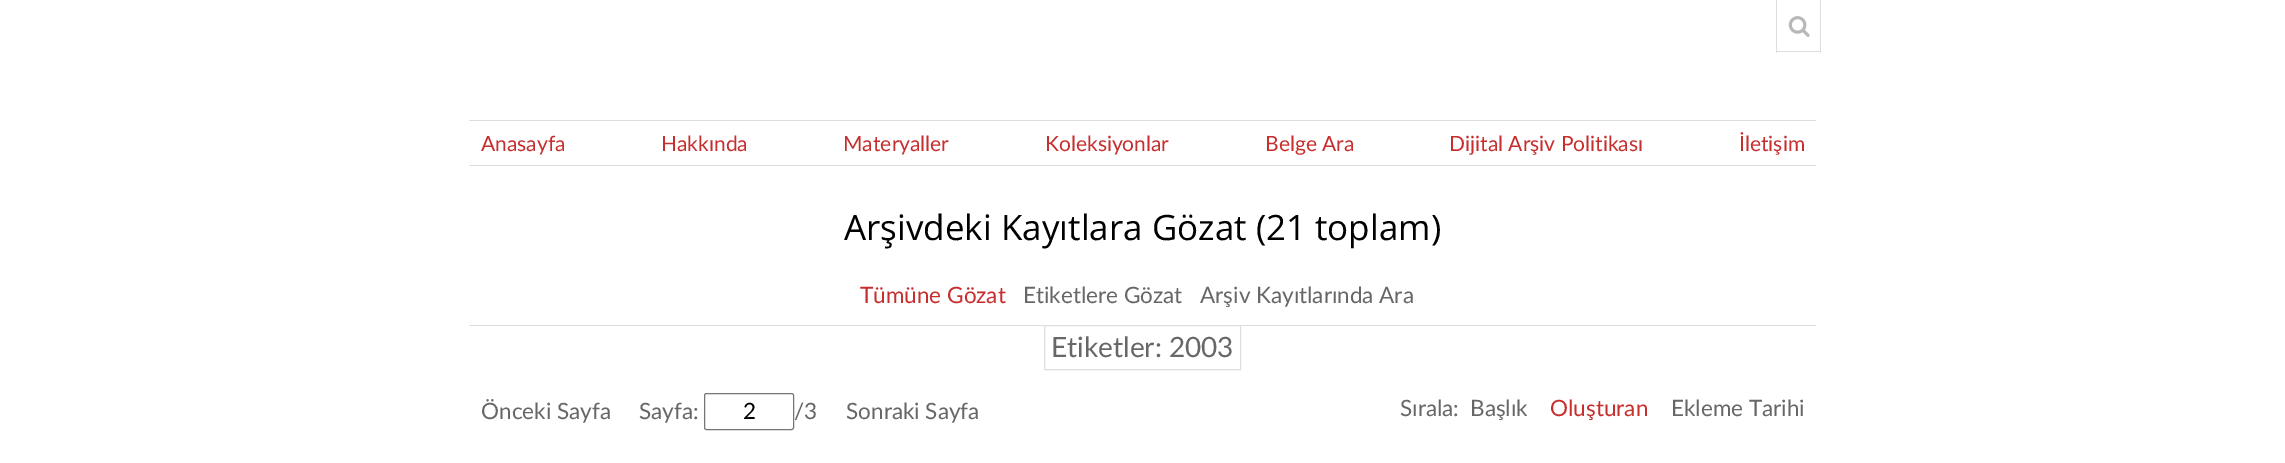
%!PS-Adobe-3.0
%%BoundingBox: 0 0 2285 463
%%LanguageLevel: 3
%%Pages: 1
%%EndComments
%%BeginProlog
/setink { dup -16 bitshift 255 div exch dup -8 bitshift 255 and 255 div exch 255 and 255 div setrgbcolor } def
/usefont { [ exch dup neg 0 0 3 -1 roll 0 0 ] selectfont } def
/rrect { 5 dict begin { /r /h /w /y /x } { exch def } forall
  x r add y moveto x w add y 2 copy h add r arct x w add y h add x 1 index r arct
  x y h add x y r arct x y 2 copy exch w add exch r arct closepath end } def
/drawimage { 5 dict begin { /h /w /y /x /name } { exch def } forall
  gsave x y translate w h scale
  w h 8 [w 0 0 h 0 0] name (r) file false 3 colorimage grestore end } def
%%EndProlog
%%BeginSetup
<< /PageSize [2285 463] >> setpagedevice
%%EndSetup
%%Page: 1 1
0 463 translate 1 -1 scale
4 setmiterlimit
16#FFFFFF setink
0 0 2285 463 rectfill
[
    [1820 0 1 53 16#DEDEDE]
    [1776 51 45 1 16#DEDEDE]
    [1776 0 1 53 16#DEDEDE]
] { aload pop setink rectfill } forall
(img1.raw) 1788 16 22 21 drawimage
469 120 1347 1 rectfill
469 165 1347 1 rectfill
/Lato-Regular 21 usefont
16#C72E2E setink
[
    [(Anasayfa) 481 151]
    [(Hakkında) 661 151]
    [(Materyaller) 843 151]
    [(Koleksiyonlar) 1045 151]
    [(Belge Ara) 1265 151]
    [(Dijital Arşiv Politikası) 1449 151]
    [(İletişim) 1739 151]
] { aload pop moveto show } forall
/OpenSans-Regular 35 usefont
16#000000 setink
844 240 moveto (Arşivdeki Kayıtlara Gözat \(21 toplam\)) show
16#DEDEDE setink
469 325 1347 1 rectfill
/Lato-Regular 22.5 usefont
16#C72E2E setink
860 303 moveto (Tümüne Gözat) show
16#676767 setink
1023 303 moveto (Etiketlere Gözat) show
1200 303 moveto (Arşiv Kayıtlarında Ara) show
16#DEDEDE setink
1044.5 325.5 196 44 rectstroke
/Lato-Regular 28 usefont
16#676767 setink
1051 357 moveto (Etiketler: 2003) show
/Lato-Regular 22.5 usefont
481 419 moveto (Önceki Sayfa) show
639 419 moveto (Sayfa:) show
16#767676 setink
704.5 393.5 89 36 2 rrect stroke
16#000000 setink
743 419 moveto (2) show
16#676767 setink
[
    [(/3) 794 419]
    [(Sonraki Sayfa) 846 419]
    [(Sırala:) 1400 416]
    [(Başlık) 1470 416]
] { aload pop moveto show } forall
16#C72E2E setink
1550 416 moveto (Oluşturan) show
16#676767 setink
1671 416 moveto (Ekleme Tarihi) show
showpage
%%EOF
